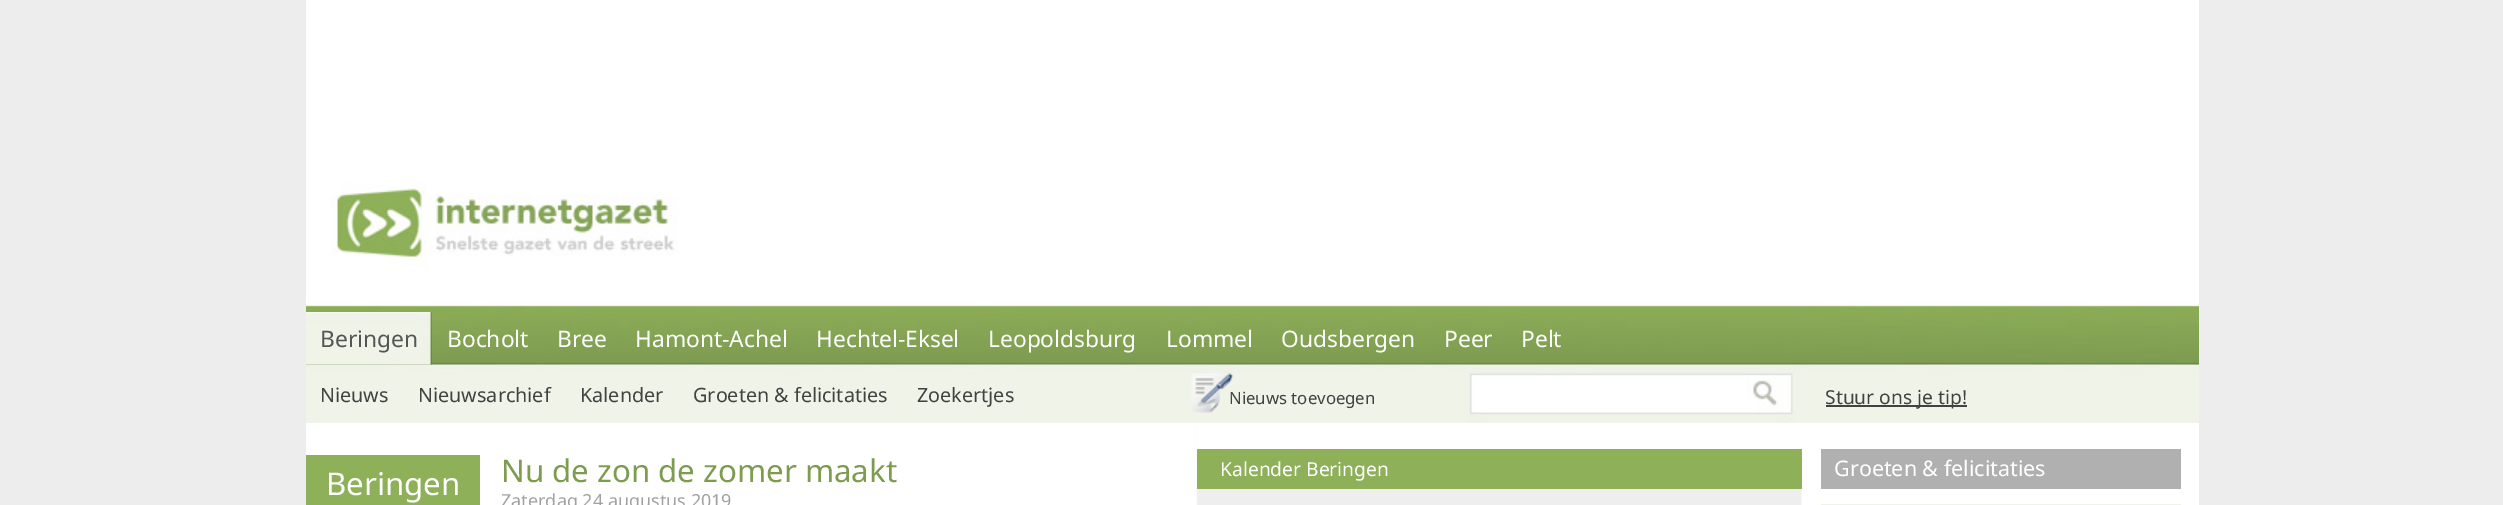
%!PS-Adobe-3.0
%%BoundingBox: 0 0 2503 505
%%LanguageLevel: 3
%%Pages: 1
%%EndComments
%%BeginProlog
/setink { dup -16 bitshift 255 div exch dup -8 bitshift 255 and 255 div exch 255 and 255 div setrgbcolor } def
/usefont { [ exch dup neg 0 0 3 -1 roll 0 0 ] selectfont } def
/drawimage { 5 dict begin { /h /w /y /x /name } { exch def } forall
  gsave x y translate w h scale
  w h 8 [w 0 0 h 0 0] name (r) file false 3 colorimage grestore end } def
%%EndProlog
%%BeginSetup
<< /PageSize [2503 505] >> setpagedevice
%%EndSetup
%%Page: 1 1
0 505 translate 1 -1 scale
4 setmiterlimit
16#EDEDED setink
0 0 2503 505 rectfill
16#FFFFFF setink
306 0 1893 135 rectfill
(img1.raw) 306 423 1893 82 drawimage
(img2.raw) 306 135 1893 288 drawimage
(img3.raw) 306 312 126 53 drawimage
/NotoSans-Regular 22.75 usefont
16#555555 setink
320 347 moveto (Beringen) show
16#FFFFFF setink
[
    [(Bocholt) 447 347]
    [(Bree) 557 347]
    [(Hamont-Achel) 635 347]
    [(Hechtel-Eksel) 816 347]
    [(Leopoldsburg) 988 347]
    [(Lommel) 1166 347]
    [(Oudsbergen) 1281 347]
    [(Peer) 1444 347]
    [(Pelt) 1521 347]
] { aload pop moveto show } forall
/NotoSans-Regular 19.75 usefont
16#424242 setink
[
    [(Nieuws) 320 402]
    [(Nieuwsarchief) 418 402]
    [(Kalender) 580 402]
    [(Groeten & felicitaties) 693 402]
    [(Zoekertjes) 917 402]
] { aload pop moveto show } forall
(img4.raw) 1191 373 43 40 drawimage
/NotoSans-Regular 16.75 usefont
1229 404 moveto (Nieuws toevoegen) show
1826 405 141 2 rectfill
/NotoSans-Regular 19.25 usefont
1825 404 moveto (Stuur ons je tip!) show
16#8EB059 setink
306 455 174 50 rectfill
/NotoSans-Regular 31.25 usefont
16#FFFFFF setink
326 495 moveto (Beringen) show
16#7D9C4E setink
501 482 moveto (Nu de zon de zomer maakt) show
/NotoSans-Regular 18 usefont
16#A1A1A1 setink
501 507 moveto (Zaterdag 24 augustus 2019) show
16#FFFFFF setink
1197 423 605 26 rectfill
16#8EB059 setink
1197 449 605 40 rectfill
/NotoSans-Regular 19.25 usefont
16#FFFFFF setink
1220 476 moveto (Kalender Beringen) show
16#B0B0B0 setink
1821 449 360 40 rectfill
/NotoSans-Regular 21.5 usefont
16#FFFFFF setink
1834 476 moveto (Groeten & felicitaties) show
16#EFF3E8 setink
1821 504 360 1 rectfill
showpage
%%EOF
